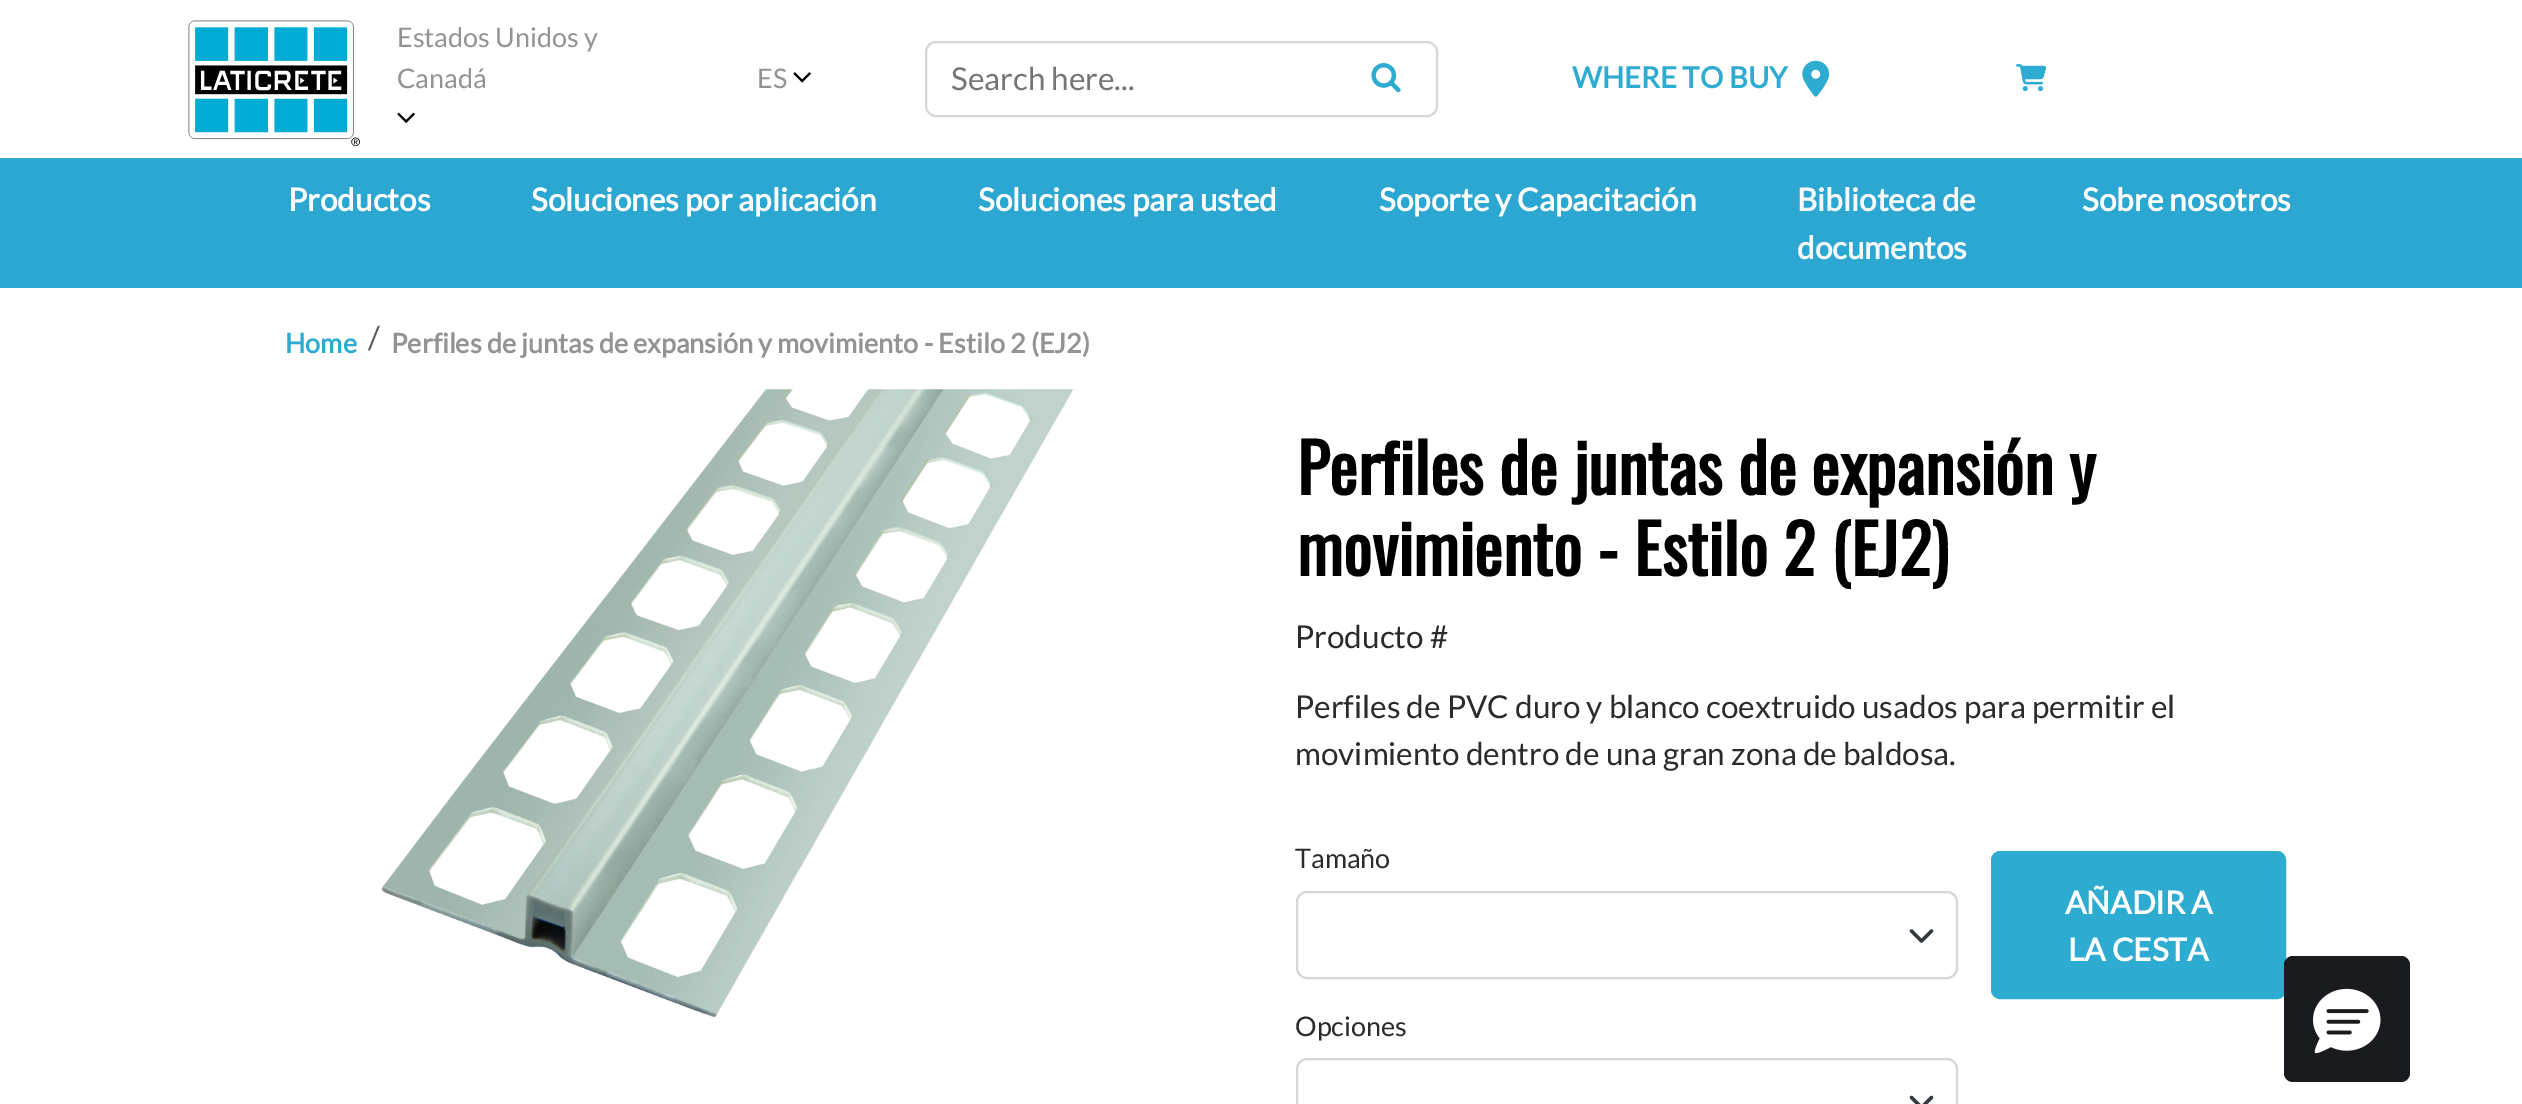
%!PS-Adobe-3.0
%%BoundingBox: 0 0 2522 1104
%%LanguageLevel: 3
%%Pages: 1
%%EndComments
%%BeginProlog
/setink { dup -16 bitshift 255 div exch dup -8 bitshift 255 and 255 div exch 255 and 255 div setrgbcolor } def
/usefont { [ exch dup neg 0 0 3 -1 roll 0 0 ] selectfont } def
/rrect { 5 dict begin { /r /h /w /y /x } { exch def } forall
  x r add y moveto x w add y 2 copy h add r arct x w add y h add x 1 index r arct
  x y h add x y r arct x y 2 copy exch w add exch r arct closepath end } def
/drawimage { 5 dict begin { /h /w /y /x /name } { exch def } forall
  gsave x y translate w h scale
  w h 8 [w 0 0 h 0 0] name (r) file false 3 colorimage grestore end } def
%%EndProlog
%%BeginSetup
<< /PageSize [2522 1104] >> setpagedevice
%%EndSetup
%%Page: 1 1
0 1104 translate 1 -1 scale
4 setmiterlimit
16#FFFFFF setink
0 0 2522 1104 rectfill
(img1.raw) 188 20 172 126 drawimage
/Lato-Regular 27 usefont
16#939393 setink
397 47 moveto (Estados Unidos y) show
397 88 moveto (Canadá) show
(img2.raw) 397 112 18 11 drawimage
757 88 moveto (ES) show
(img3.raw) 793 72 18 11 drawimage
16#D6D6D6 setink
2 setlinewidth
926 42 511 74 10 rrect stroke
/Lato-Regular 31.5 usefont
16#757575 setink
951 90 moveto (Search here...) show
(img4.raw) 1371 63 30 30 drawimage
/Lato-Bold 29.25 usefont
16#2DABD1 setink
1572 88 moveto (WHERE TO BUY) show
(img5.raw) 1802 60 28 37 drawimage
(img6.raw) 2016 64 31 28 drawimage
16#2BA7D2 setink
0 158 2522 130 rectfill
/Lato-Bold 31.5 usefont
16#FFFFFF setink
[
    [(Productos) 288 211]
    [(Soluciones por aplicación) 531 211]
    [(Soluciones para usted) 978 211]
    [(Soporte y Capacitación) 1379 211]
] { aload pop moveto show } forall
16#F8F9FA setink
1797 211 moveto (Biblioteca de) show
1797 259 moveto (documentos) show
16#FFFFFF setink
2082 211 moveto (Sobre nosotros) show
/Lato-Bold 27 usefont
16#2DABD1 setink
285 353 moveto (Home) show
/Lato-Regular 31.5 usefont
16#595C5F setink
368 349 moveto (/) show
/Lato-Bold 27 usefont
16#939393 setink
391 353 moveto (Perfiles de juntas de expansión y movimiento - Estilo 2 \(EJ2\)) show
(img7.raw) 381 389 693 628 drawimage
/Oswald-Bold 67.5 usefont
16#000000 setink
1297 495 moveto (Perfiles de juntas de expansión y) show
1297 576 moveto (movimiento - Estilo 2 \(EJ2\)) show
/Lato-Regular 31.5 usefont
16#2B2B2B setink
[
    [(Producto #) 1295 648]
    [(Perfiles de PVC duro y blanco coextruido usados para permitir el) 1295 718]
    [(movimiento dentro de una gran zona de baldosa.) 1295 765]
] { aload pop moveto show } forall
/Lato-Regular 27 usefont
1295 868 moveto (Tamaño) show
16#343A40 setink
3.4 setlinewidth
1 setlinecap
1 setlinejoin
1911.5 931 moveto 1921.5 941 lineto 1931.5 931 lineto stroke
16#D6D6D6 setink
2 setlinewidth
0 setlinecap
0 setlinejoin
1297 892 660 86 10 rrect stroke
16#2DABD1 setink
1992 852 293 146 8 rrect gsave fill grestore
stroke
/Lato-Bold 31.5 usefont
16#FFFFFF setink
2065 914 moveto (AÑADIR A) show
2068 961 moveto (LA CESTA) show
/Lato-Regular 27 usefont
16#2B2B2B setink
1295 1036 moveto (Opciones) show
16#343A40 setink
3.4 setlinewidth
1 setlinecap
1 setlinejoin
1911.5 1097.5 moveto 1921.5 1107.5 lineto 1931.5 1097.5 lineto stroke
16#D6D6D6 setink
2 setlinewidth
0 setlinecap
0 setlinejoin
1297 1059 660 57 10 rrect stroke
16#1A1B1E setink
2284 956 126 126 9 rrect fill
(img8.raw) 2313 988 68 66 drawimage
showpage
%%EOF
